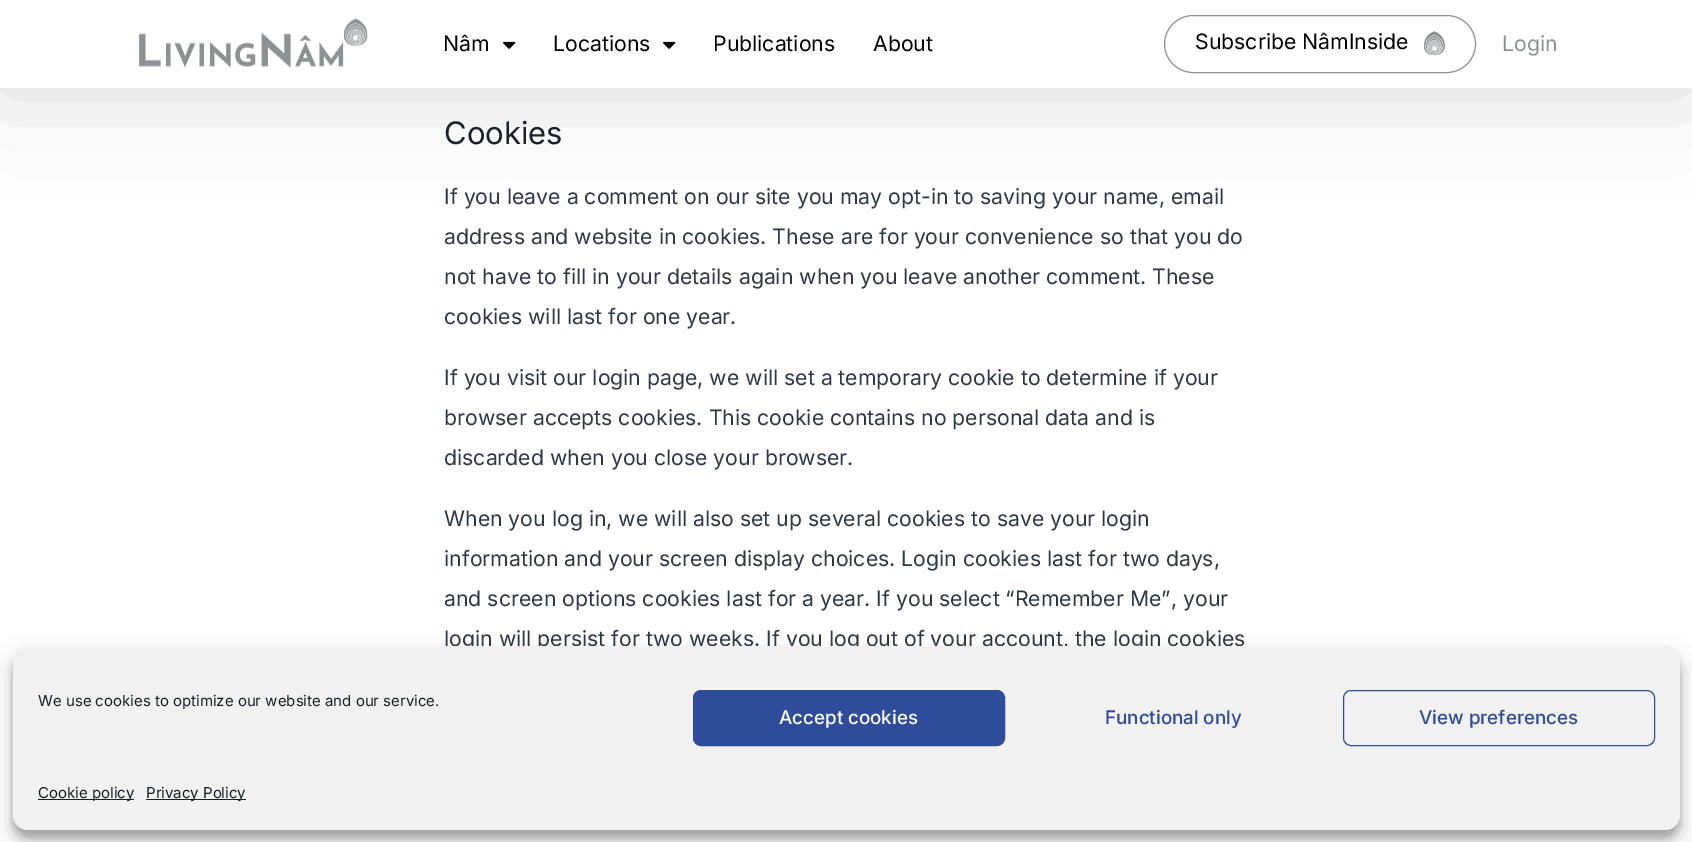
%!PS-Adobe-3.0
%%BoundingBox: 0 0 1692 842
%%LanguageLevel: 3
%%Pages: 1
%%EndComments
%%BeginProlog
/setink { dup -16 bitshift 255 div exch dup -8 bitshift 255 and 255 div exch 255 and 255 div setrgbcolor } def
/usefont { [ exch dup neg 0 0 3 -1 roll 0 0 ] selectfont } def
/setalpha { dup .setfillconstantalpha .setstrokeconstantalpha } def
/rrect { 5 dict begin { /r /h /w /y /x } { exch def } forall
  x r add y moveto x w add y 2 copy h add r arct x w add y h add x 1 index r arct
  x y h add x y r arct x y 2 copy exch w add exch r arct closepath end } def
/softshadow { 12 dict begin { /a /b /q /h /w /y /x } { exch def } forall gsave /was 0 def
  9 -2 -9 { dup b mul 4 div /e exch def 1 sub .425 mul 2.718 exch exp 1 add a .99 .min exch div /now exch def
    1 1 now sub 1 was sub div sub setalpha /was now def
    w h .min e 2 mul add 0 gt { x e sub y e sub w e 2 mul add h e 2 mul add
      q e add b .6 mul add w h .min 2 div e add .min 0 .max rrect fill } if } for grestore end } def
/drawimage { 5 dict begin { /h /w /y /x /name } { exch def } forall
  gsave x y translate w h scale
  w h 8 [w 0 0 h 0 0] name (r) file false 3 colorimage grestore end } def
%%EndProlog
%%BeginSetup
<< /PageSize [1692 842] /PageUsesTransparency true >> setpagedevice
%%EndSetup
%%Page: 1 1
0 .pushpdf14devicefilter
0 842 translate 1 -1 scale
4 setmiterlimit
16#FFFFFF setink
0 0 1692 842 rectfill
16#000000 setink
0 3 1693 87 0 50 0.15 softshadow
16#FFFFFF setink
0 0 1692 88 rectfill
(img1.raw) 139 18 229 50 drawimage
/Inter-Regular 21.25 usefont
16#000000 setink
443 51 moveto (Nâm) show
(img2.raw) 503 41 13 8 drawimage
553 51 moveto (Locations) show
(img2.raw) 663 41 13 8 drawimage
713 51 moveto (Publications) show
873 51 moveto (About) show
16#8E9194 setink
1164.5 15.5 311 57 28.5 rrect stroke
16#000000 setink
1195 49 moveto (Subscribe NâmInside) show
(img3.raw) 1424 31 21 24 drawimage
16#8E9194 setink
1502 51 moveto (Login) show
/Inter-Regular 31 usefont
16#1A202C setink
444 144 moveto (Cookies) show
/Inter-Regular 21.25 usefont
16#2D3748 setink
[
    [(If you leave a comment on our site you may opt-in to saving your name, email) 444 204]
    [(address and website in cookies. These are for your convenience so that you do) 444 244]
    [(not have to fill in your details again when you leave another comment. These) 444 284]
    [(cookies will last for one year.) 444 324]
    [(If you visit our login page, we will set a temporary cookie to determine if your) 444 385]
    [(browser accepts cookies. This cookie contains no personal data and is) 444 425]
    [(discarded when you close your browser.) 444 465]
    [(When you log in, we will also set up several cookies to save your login) 444 526]
    [(information and your screen display choices. Login cookies last for two days,) 444 566]
    [(and screen options cookies last for a year. If you select “Remember Me”, your) 444 606]
    [(login will persist for two weeks. If you log out of your account, the login cookies) 444 646]
] { aload pop moveto show } forall
16#000000 setink
13 654 1667 184 15 4 0.23 softshadow
13 659 1667 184 15 12.5 0.19 softshadow
16#F1F1F1 setink
13 646 1667 184 15 rrect fill
/Inter-Regular 15 usefont
16#191E23 setink
38 706 moveto (We use cookies to optimize our website and our service.) show
16#2F4C9B setink
693.5 690.5 311 55 7.5 rrect gsave fill grestore
stroke
/Inter-Medium 18.75 usefont
16#FFFFFF setink
779 724 moveto (Accept cookies) show
16#2F4C9B setink
1105 724 moveto (Functional only) show
1343.5 690.5 311 55 7.5 rrect stroke
1419 724 moveto (View preferences) show
16#191E23 setink
38 799 96 1 rectfill
/Inter-Regular 15 usefont
38 798 moveto (Cookie policy) show
146 799 100 1 rectfill
146 798 moveto (Privacy Policy) show
.poppdf14devicefilter showpage
%%EOF
